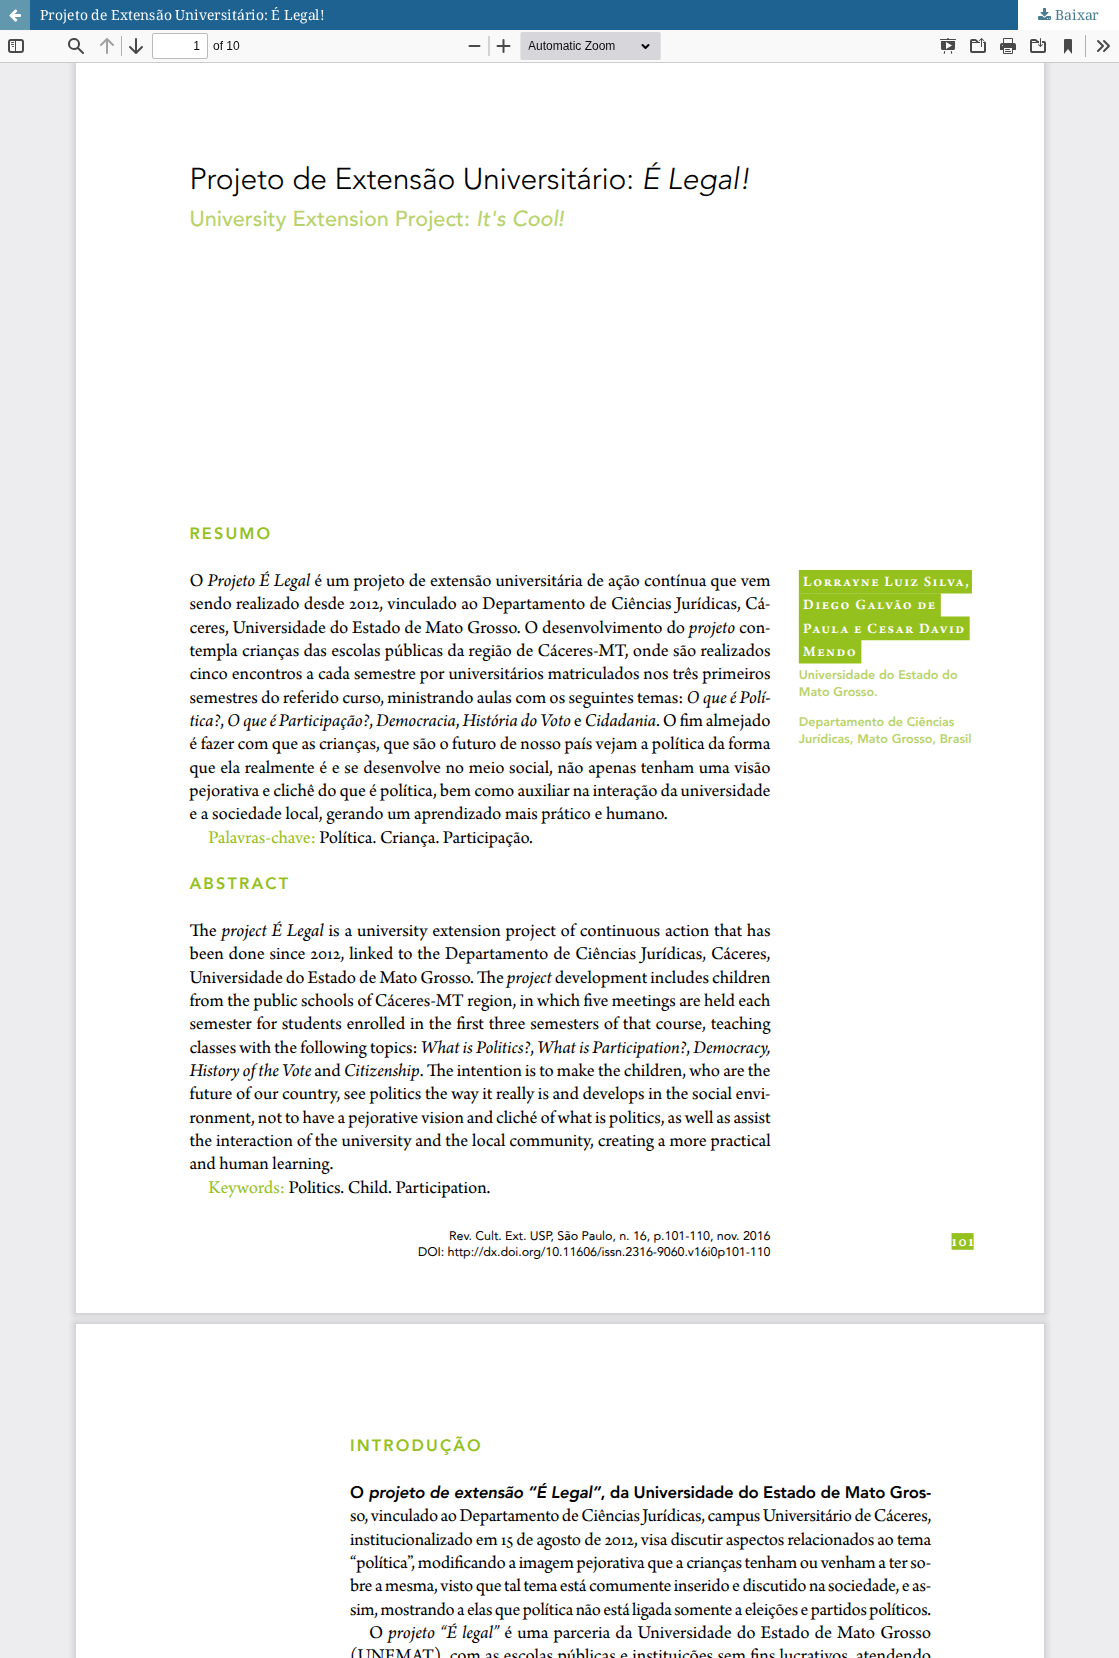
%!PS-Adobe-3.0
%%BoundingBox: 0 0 1119 1658
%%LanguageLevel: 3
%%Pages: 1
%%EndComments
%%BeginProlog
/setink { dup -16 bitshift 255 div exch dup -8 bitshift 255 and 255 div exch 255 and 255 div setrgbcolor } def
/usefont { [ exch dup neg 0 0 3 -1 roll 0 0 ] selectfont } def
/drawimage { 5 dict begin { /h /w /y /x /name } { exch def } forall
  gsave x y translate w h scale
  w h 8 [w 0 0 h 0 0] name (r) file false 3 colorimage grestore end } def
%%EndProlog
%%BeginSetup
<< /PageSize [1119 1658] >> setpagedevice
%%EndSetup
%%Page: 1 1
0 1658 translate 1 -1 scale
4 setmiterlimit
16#FFFFFF setink
0 0 1119 1658 rectfill
16#1E6292 setink
30 0 988 30 rectfill
16#6298AE setink
0 0 30 30 rectfill
(img1.raw) 9 9 12 13 drawimage
/NotoSerif-Regular 14 usefont
16#FFFFFF setink
40 20 moveto (Projeto de Extensão Universitário: É Legal!) show
(img2.raw) 1038 8 13 12 drawimage
16#4B7D92 setink
1055 20 moveto (Baixar) show
(img3.raw) 0 30 1119 1628 drawimage
showpage
%%EOF
